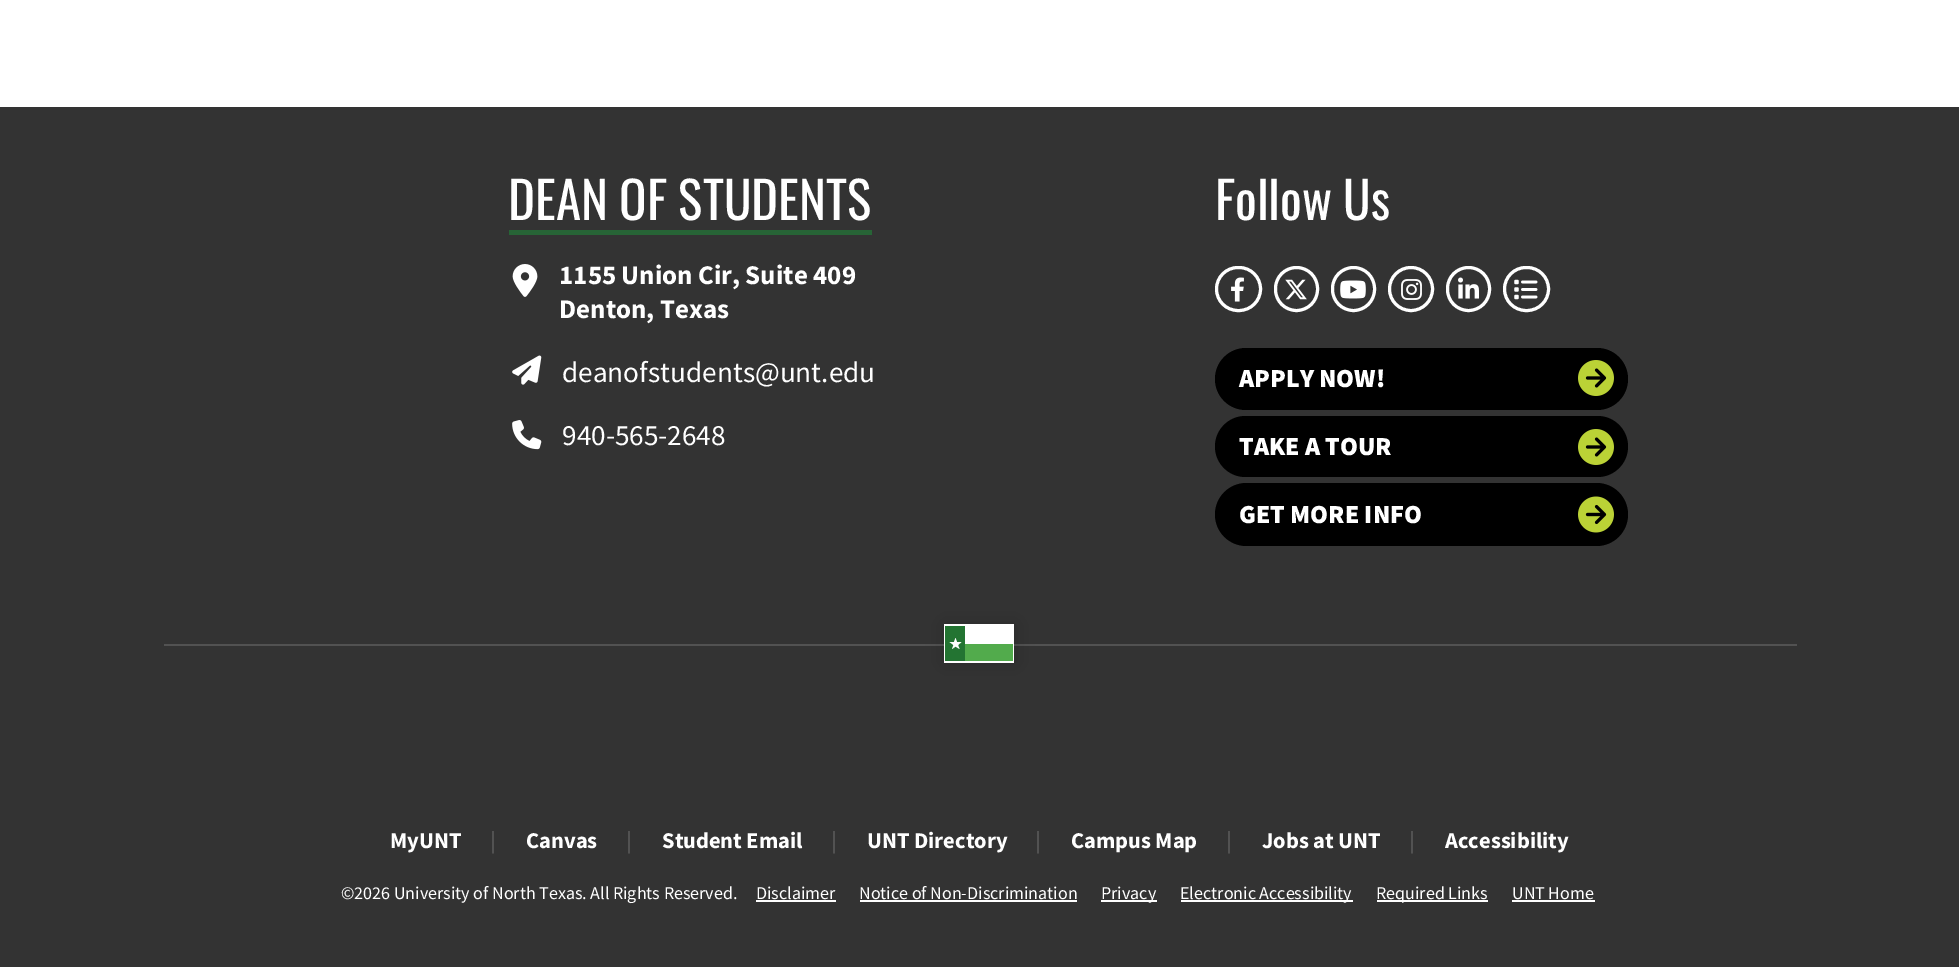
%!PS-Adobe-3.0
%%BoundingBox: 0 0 1959 967
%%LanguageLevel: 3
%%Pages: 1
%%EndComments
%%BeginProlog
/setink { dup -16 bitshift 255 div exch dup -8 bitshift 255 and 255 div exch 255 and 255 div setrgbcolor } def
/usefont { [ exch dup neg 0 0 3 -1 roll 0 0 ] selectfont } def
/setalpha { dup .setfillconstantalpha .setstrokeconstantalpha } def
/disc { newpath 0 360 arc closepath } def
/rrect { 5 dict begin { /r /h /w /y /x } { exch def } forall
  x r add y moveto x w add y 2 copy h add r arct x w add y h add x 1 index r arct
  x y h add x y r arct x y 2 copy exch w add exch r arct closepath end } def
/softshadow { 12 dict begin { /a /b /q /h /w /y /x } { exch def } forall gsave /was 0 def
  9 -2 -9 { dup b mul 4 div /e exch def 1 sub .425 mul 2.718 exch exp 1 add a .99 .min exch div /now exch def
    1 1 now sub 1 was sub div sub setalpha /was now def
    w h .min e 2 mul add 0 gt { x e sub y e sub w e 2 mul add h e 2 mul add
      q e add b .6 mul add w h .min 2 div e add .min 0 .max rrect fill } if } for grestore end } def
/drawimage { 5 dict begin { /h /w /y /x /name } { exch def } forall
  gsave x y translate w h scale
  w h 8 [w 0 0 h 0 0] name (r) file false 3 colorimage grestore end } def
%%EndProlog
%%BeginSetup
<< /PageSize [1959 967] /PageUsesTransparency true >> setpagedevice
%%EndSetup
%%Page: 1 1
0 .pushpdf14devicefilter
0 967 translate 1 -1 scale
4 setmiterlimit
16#FFFFFF setink
0 0 1959 967 rectfill
16#333333 setink
0 107 1959 860 rectfill
16#276436 setink
509 230 363 5 rectfill
/Oswald-Regular 51 usefont
16#FFFFFF setink
508 220 moveto (DEAN OF STUDENTS) show
(img1.raw) 512 264 26 33 drawimage
/SourceSansPro-Bold 27 usefont
559 284 moveto (1155 Union Cir, Suite 409) show
559 318 moveto (Denton, Texas) show
(img2.raw) 512 355 30 30 drawimage
/SourceSansPro-Regular 29.25 usefont
562 382 moveto (deanofstudents@unt.edu) show
(img3.raw) 512 420 30 30 drawimage
562 445 moveto (940-565-2648) show
/Oswald-Regular 51 usefont
1215 220 moveto (Follow Us) show
3 setlinewidth
1216.5 267.5 44 43 21.5 rrect stroke
(img4.raw) 1231 277 13 25 drawimage
1275.5 267.5 42 43 21 rrect stroke
(img5.raw) 1285 279 22 21 drawimage
1332.5 267.5 42 43 21 rrect stroke
(img6.raw) 1340 280 26 19 drawimage
1411 289 21.5 disc stroke
(img7.raw) 1401 279 21 21 drawimage
1447.5 267.5 42 43 21 rrect stroke
(img8.raw) 1458 277 21 22 drawimage
1504.5 267.5 44 43 21.5 rrect stroke
(img9.raw) 1514 279 24 21 drawimage
16#000000 setink
1215 348 413 62 31 rrect fill
/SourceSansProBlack-Black 26 usefont
16#FFFFFF setink
1239 387 moveto (APPLY NOW!) show
(img10.raw) 1578 360 36 36 drawimage
16#000000 setink
1215 416 413 61 30.5 rrect fill
16#FFFFFF setink
1239 455 moveto (TAKE A TOUR) show
(img10.raw) 1578 429 36 36 drawimage
16#000000 setink
1215 483 413 63 31.5 rrect fill
16#FFFFFF setink
1239 523 moveto (GET MORE INFO) show
(img11.raw) 1578 496 36 37 drawimage
16#525252 setink
164 644 1633 2 rectfill
16#000000 setink
944 624 72 39 0 11 0.15 softshadow
[
    [944 624 70 39 16#FFFFFF]
    [965 644 48 17 16#52AB4C]
    [945 626 20 35 16#237432]
] { aload pop setink rectfill } forall
16#FFFFFF setink
955.5 638 moveto 957 642 lineto 961.5 642 lineto 958 645 lineto 959.5 649 lineto 955.5 646.5 lineto 952 649 lineto 953.5 645 lineto 949.5 642 lineto 954 642 lineto closepath fill
/SourceSansPro-Bold 22.5 usefont
390 848 moveto (MyUNT) show
16#525252 setink
490 848 moveto (|) show
16#FFFFFF setink
526 848 moveto (Canvas) show
16#525252 setink
626 848 moveto (|) show
16#FFFFFF setink
662 848 moveto (Student Email) show
16#525252 setink
831 848 moveto (|) show
16#FFFFFF setink
867 848 moveto (UNT Directory) show
16#525252 setink
1035 848 moveto (|) show
16#FFFFFF setink
1071 848 moveto (Campus Map) show
16#525252 setink
1226 848 moveto (|) show
16#FFFFFF setink
1262 848 moveto (Jobs at UNT) show
16#525252 setink
1409 848 moveto (|) show
16#FFFFFF setink
1445 848 moveto (Accessibility) show
/SourceSansPro-Regular 18 usefont
341 899 moveto (©2026 University of North Texas. All Rights Reserved.) show
756 899 moveto (Disclaimer) show
756 900 80 2 rectfill
859 899 moveto (Notice of Non-Discrimination) show
860 900 217 2 rectfill
1101 900 56 2 rectfill
1101 899 moveto (Privacy) show
1181 900 172 2 rectfill
1180 899 moveto (Electronic Accessibility) show
1377 900 111 2 rectfill
1376 899 moveto (Required Links) show
1512 899 moveto (UNT Home) show
1512 900 83 2 rectfill
.poppdf14devicefilter showpage
%%EOF
